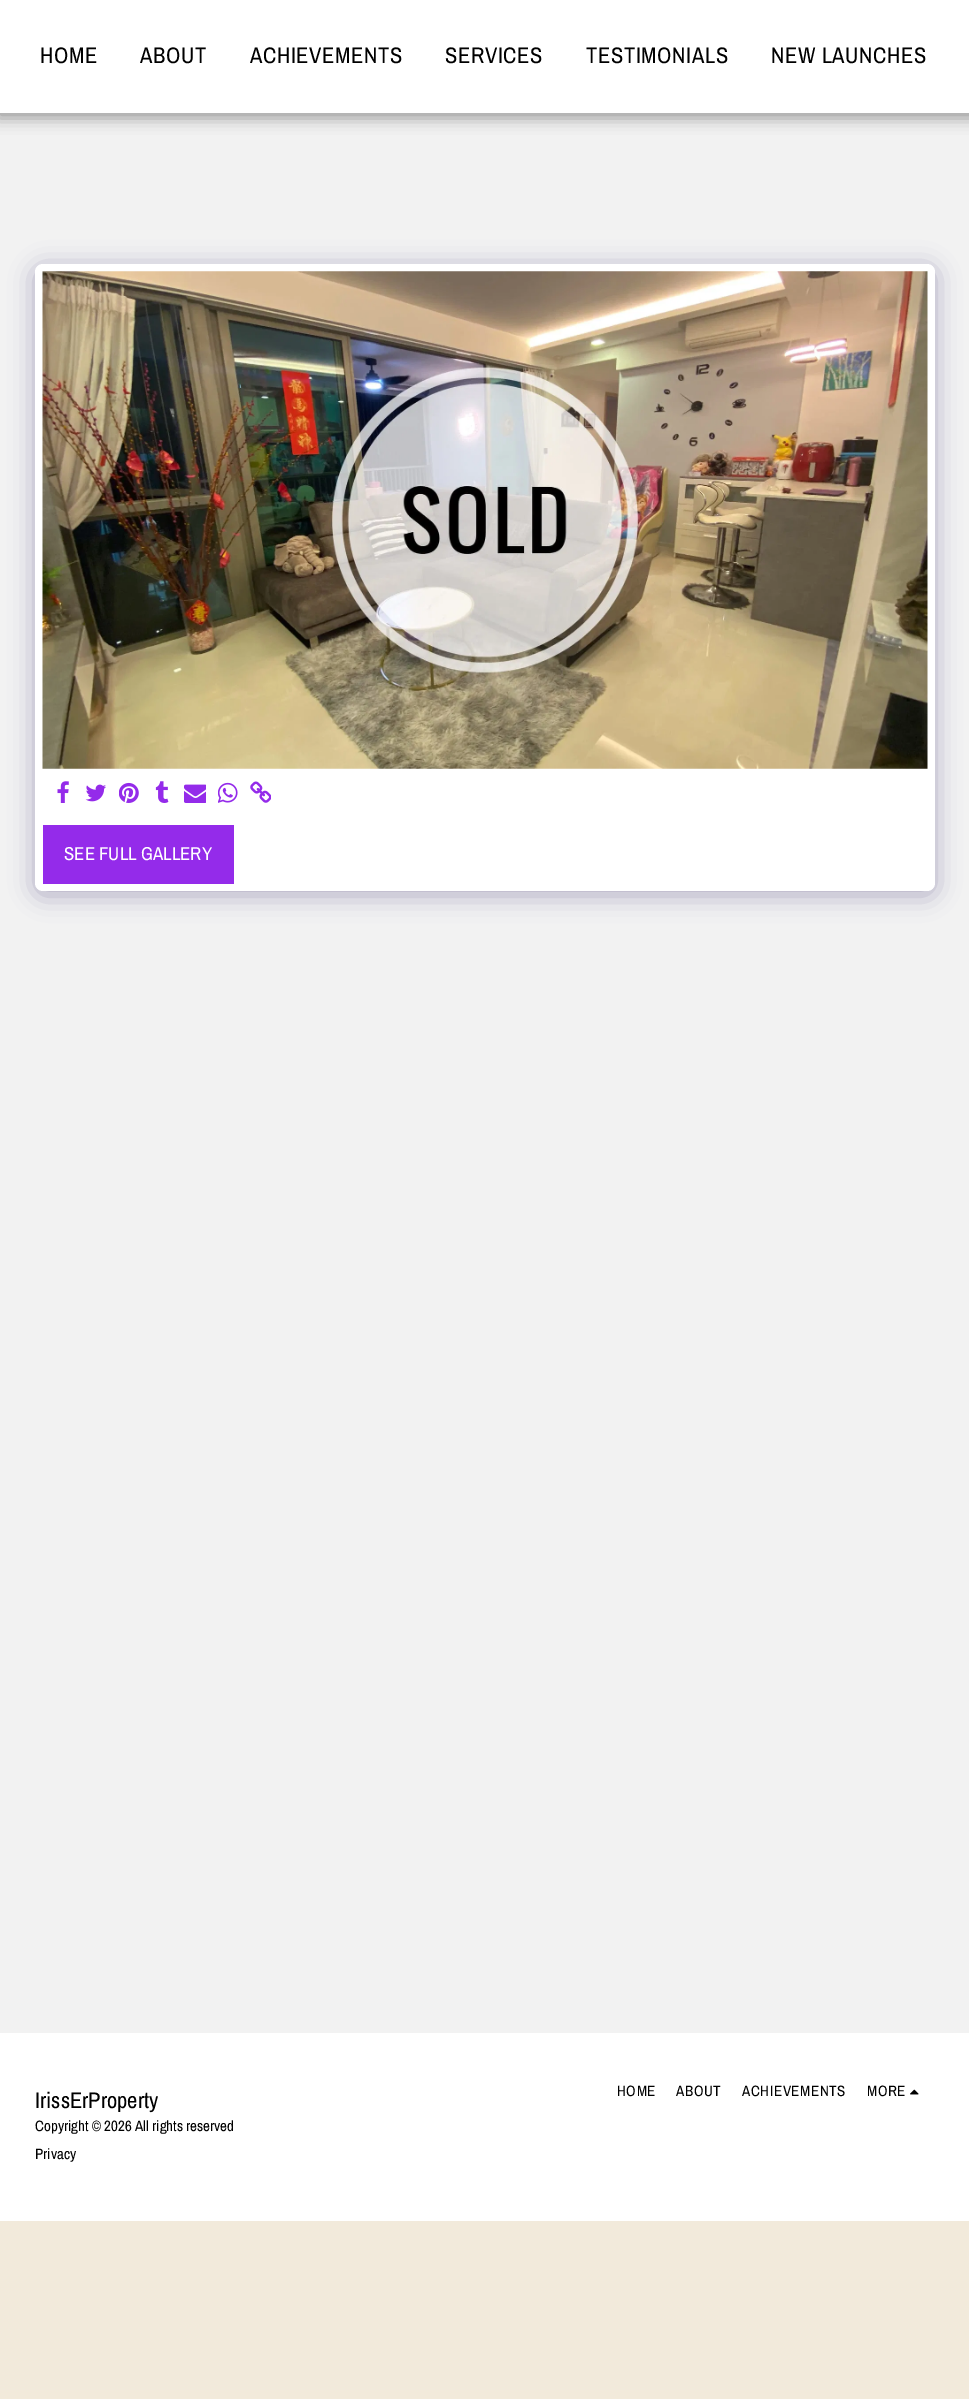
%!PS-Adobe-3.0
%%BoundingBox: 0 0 969 2399
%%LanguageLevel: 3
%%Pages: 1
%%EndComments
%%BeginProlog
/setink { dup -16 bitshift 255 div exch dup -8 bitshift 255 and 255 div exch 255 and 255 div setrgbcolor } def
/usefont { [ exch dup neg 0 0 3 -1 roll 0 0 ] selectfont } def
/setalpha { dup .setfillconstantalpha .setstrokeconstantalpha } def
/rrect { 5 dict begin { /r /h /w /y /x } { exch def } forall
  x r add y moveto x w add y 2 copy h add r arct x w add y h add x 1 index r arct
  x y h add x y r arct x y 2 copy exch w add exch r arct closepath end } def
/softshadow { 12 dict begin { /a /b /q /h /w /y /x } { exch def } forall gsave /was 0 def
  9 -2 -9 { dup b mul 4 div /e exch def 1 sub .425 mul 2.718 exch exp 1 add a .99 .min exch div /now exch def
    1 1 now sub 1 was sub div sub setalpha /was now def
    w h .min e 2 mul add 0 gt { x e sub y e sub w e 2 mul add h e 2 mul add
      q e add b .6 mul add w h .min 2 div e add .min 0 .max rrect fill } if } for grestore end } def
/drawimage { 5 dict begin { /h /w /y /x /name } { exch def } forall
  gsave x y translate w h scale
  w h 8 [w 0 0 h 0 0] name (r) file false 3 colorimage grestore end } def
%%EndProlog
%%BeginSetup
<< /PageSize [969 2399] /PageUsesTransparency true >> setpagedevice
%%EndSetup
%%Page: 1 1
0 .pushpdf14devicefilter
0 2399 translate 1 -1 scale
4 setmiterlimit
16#F2EADB setink
0 0 969 2399 rectfill
16#F2F2F2 setink
0 113 969 1920 rectfill
16#000000 setink
-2 0 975 118 0 7.5 0.35 softshadow
16#FFFFFF setink
0 0 969 113 rectfill
/ArchivoNarrow-Regular 22.5 usefont
16#000000 setink
40 63 moveto 0.6 0 (HOME) ashow
140 63 moveto 0.6 0 (ABOUT) ashow
250 63 moveto 0.6 0 (ACHIEVEMENTS) ashow
445 63 moveto 0.6 0 (SERVICES) ashow
586 63 moveto 0.6 0 (TESTIMONIALS) ashow
771 63 moveto 0.6 0 (NEW LAUNCHES) ashow
16#4D3F7A setink
35 268 900 627 8 12.5 0.4 softshadow
16#FFFFFF setink
35 264 900 627 8 rrect fill
(img1.raw) 42 271 886 498 drawimage
(img2.raw) 57 781 12 22 drawimage
(img3.raw) 85 784 21 18 drawimage
(img4.raw) 119 782 20 21 drawimage
(img5.raw) 155 781 14 22 drawimage
(img6.raw) 184 784 22 19 drawimage
(img7.raw) 218 782 20 21 drawimage
(img8.raw) 250 781 21 22 drawimage
16#942BEA setink
43 825 191 59 rectfill
/ArchivoNarrow-Regular 18.75 usefont
16#FFFFFF setink
64 860 moveto (SEE FULL GALLERY) show
0 2033 969 188 rectfill
/ArchivoNarrow-Regular 22.5 usefont
16#000000 setink
35 2108 moveto (IrissErProperty) show
/ArchivoNarrow-Regular 15 usefont
35 2131 moveto (Copyright © 2026 All rights reserved) show
35 2159 moveto (Privacy) show
617 2096 moveto 0.6 0 (HOME) ashow
676 2096 moveto 0.6 0 (ABOUT) ashow
742 2096 moveto 0.6 0 (ACHIEVEMENTS) ashow
867 2096 moveto 0.6 0 (MORE) ashow
(img9.raw) 910 2089 9 6 drawimage
.poppdf14devicefilter showpage
%%EOF
